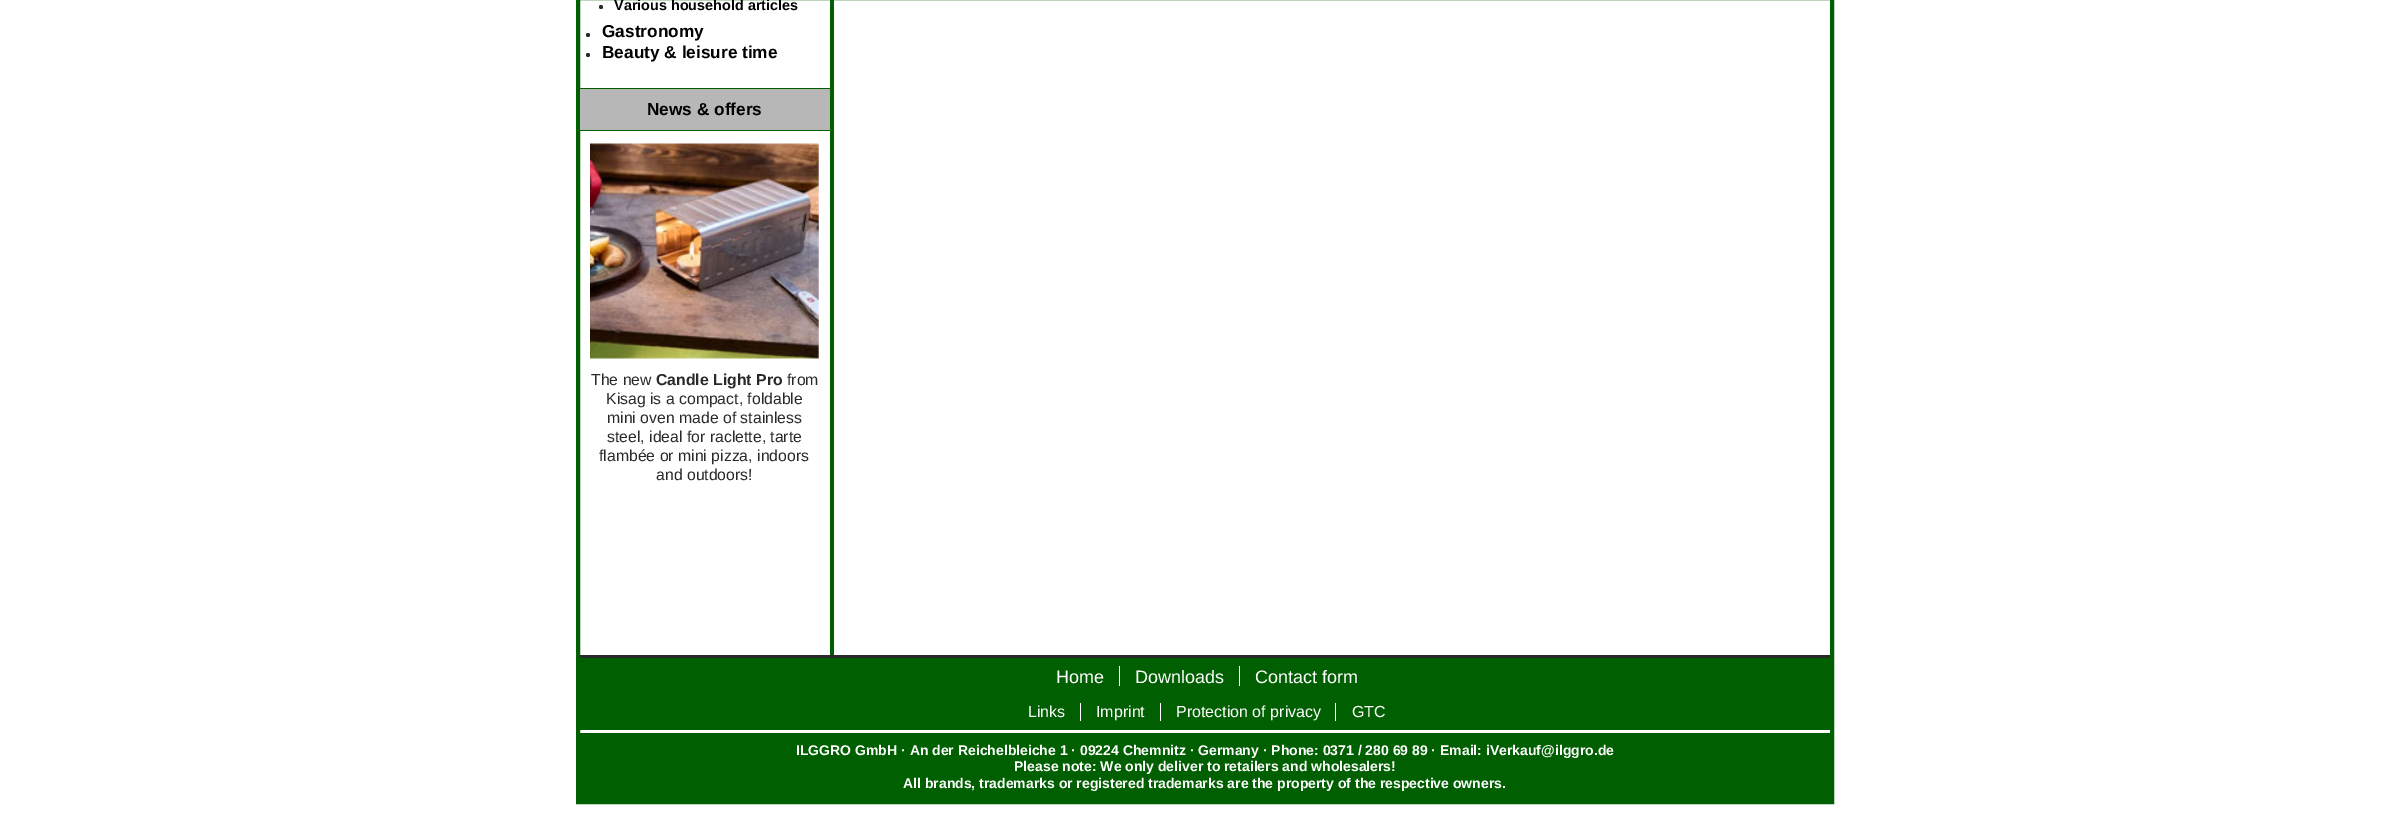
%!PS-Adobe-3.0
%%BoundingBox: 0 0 2408 813
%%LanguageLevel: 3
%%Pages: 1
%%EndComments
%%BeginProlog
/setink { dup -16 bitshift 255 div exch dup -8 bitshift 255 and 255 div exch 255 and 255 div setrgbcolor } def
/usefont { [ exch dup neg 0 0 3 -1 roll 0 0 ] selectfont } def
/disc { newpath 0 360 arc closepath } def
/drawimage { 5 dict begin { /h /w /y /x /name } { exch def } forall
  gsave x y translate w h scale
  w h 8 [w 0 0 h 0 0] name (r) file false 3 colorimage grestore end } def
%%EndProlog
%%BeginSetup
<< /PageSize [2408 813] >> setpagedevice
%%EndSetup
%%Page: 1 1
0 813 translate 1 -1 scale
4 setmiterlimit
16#FFFFFF setink
0 0 2408 813 rectfill
16#005F00 setink
4 setlinewidth
578 -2 1254 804 rectstroke
16#292929 setink
601 7 2 disc fill
/LiberationSans-Bold 14.4 usefont
16#000000 setink
614 10 moveto (Various household articles) show
16#292929 setink
588 35 2 disc fill
/LiberationSans-Bold 17.25 usefont
16#000000 setink
602 37 moveto (Gastronomy) show
16#292929 setink
588 55 2 disc fill
16#000000 setink
602 58 moveto (Beauty & leisure time) show
[
    [580 89 250 41 16#B7B7B7]
    [580 88 250 1 16#005F00]
    [580 130 250 1 16#005F00]
] { aload pop setink rectfill } forall
16#000000 setink
647 115 moveto (News & offers) show
(img1.raw) 590 143 229 216 drawimage
/LiberationSans-Regular 15.8 usefont
16#292929 setink
591 385 moveto (The new) show
/LiberationSans-Bold 15.8 usefont
656 385 moveto (Candle Light Pro) show
/LiberationSans-Regular 15.8 usefont
[
    [(from) 787 385]
    [(Kisag is a compact, foldable) 606 404]
    [(mini oven made of stainless) 607 423]
    [(steel, ideal for raclette, tarte) 607 442]
    [(flambée or mini pizza, indoors) 599 461]
    [(and outdoors!) 656 480]
] { aload pop moveto show } forall
[
    [830 0 4 655 16#005F00]
    [580 658 1250 72 16#005F00]
    [580 655 1250 3 16#292929]
] { aload pop setink rectfill } forall
/LiberationSans-Regular 18 usefont
16#FFFFFF setink
1056 683 moveto (Home) show
1135 683 moveto (Downloads) show
1119 666 1 20 rectfill
1239 666 1 20 rectfill
1255 683 moveto (Contact form) show
/LiberationSans-Regular 16 usefont
1028 717 moveto (Links) show
1080 703 1 18 rectfill
1096 717 moveto (Imprint) show
1160 703 1 18 rectfill
1176 717 moveto (Protection of privacy) show
1335 703 1 18 rectfill
1352 717 moveto (GTC) show
16#005F00 setink
580 733 1250 67 rectfill
/LiberationSans-Bold 14 usefont
16#FFFFFF setink
[
    [(ILGGRO GmbH · An der Reichelbleiche 1 · 09224 Chemnitz · Germany · Phone: 0371 / 280 69 89 · Email: iVerkauf@ilggro.de) 796 755]
    [(Please note: We only deliver to retailers and wholesalers!) 1014 771]
    [(All brands, trademarks or registered trademarks are the property of the respective owners.) 903 788]
] { aload pop moveto show } forall
showpage
%%EOF
